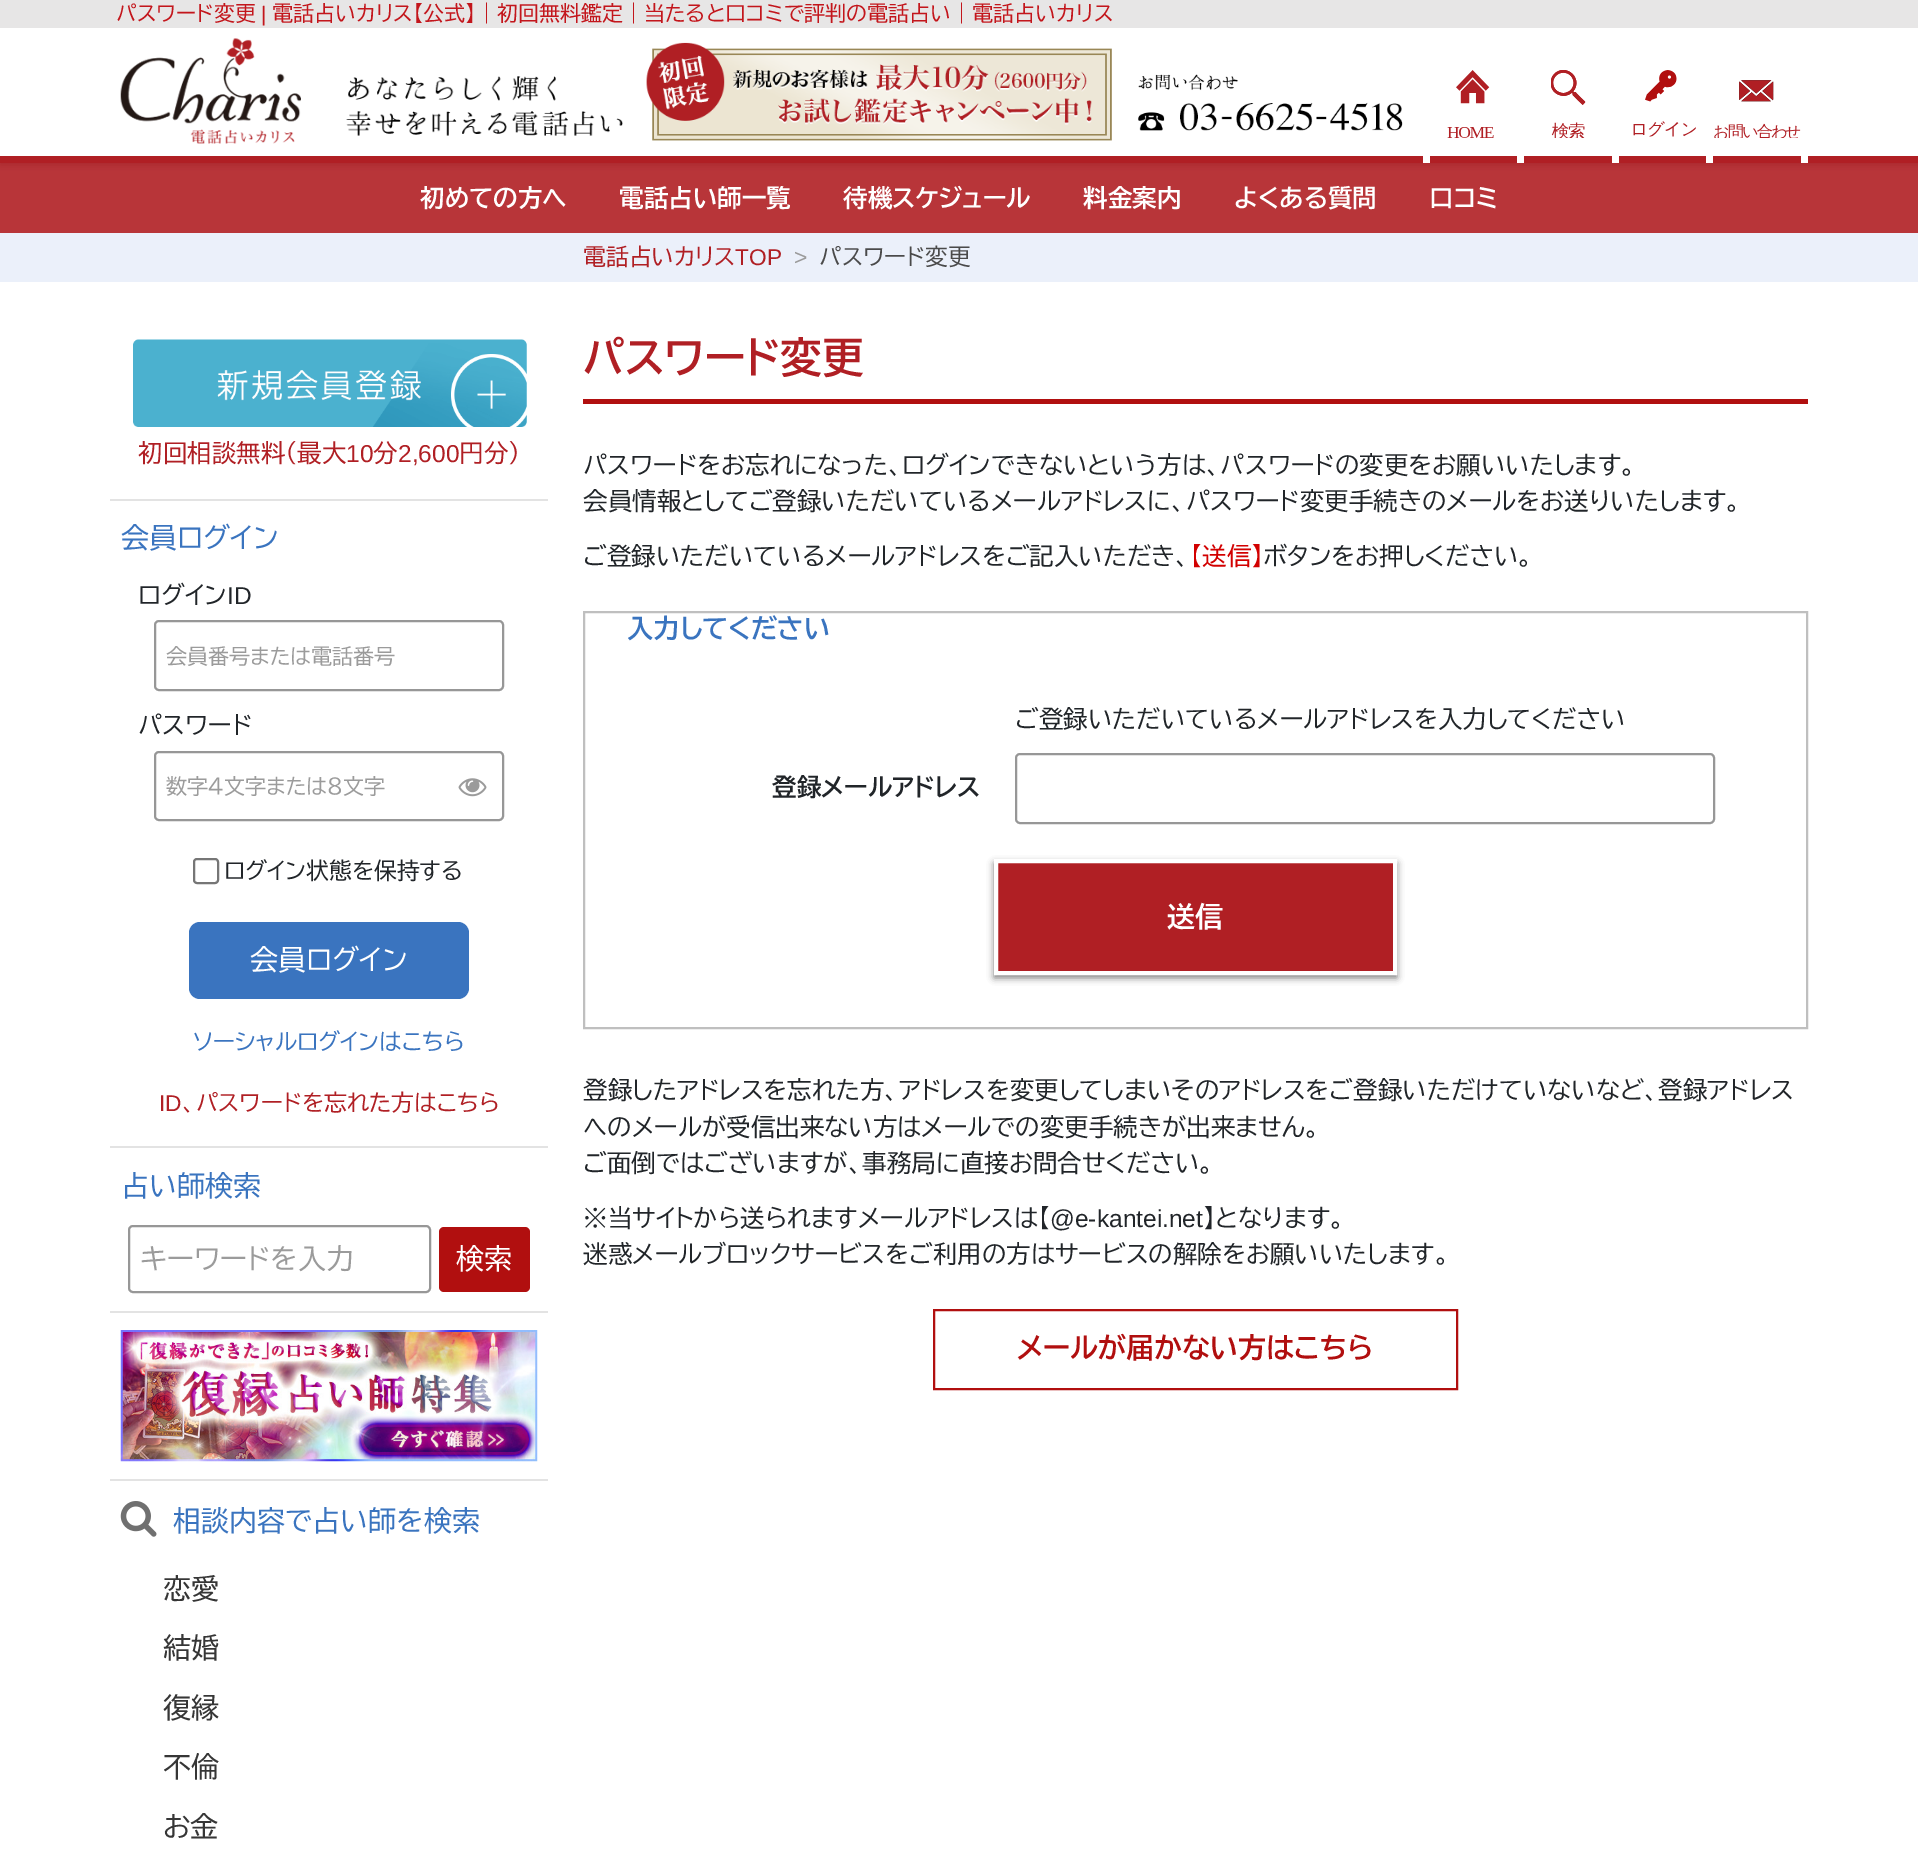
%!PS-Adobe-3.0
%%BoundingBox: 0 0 1918 1860
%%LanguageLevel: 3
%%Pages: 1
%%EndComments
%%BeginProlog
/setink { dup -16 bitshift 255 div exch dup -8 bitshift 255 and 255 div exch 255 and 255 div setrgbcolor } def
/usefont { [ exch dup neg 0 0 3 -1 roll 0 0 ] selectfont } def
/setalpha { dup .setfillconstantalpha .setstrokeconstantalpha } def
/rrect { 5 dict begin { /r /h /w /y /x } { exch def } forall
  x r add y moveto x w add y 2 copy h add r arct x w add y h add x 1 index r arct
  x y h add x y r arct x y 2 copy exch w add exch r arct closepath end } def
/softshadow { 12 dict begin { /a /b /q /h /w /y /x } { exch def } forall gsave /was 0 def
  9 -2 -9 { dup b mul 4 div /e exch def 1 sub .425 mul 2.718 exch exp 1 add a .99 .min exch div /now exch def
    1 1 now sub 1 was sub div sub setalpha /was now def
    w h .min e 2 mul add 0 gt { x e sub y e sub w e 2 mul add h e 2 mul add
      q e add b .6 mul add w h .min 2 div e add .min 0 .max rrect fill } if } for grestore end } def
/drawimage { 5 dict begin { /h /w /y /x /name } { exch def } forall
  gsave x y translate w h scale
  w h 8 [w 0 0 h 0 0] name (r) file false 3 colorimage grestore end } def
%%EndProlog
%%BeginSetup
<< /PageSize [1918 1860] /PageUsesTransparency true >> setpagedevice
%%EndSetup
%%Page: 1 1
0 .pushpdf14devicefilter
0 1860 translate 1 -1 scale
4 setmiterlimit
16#FFFFFF setink
0 0 1918 1860 rectfill
gsave
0 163 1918 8 rectclip
16#000000 setink
0 2 1918 163 0 3.5 0.5 softshadow
grestore
16#B01F24 setink
0 156 1918 7 rectfill
16#E7E6E6 setink
0 0 1918 28 rectfill
/BIZUDPGothic-Regular 21 usefont
16#C3161C setink
116 21 moveto (パスワード変更) show
/LiberationSans-Regular 21 usefont
261 21 moveto (|) show
/BIZUDPGothic-Regular 21 usefont
272 21 moveto (電話占いカリス【公式】｜初回無料鑑定｜当たると口コミで評判の電話占い｜電話占いカリス) show
(img1.raw) 120 38 181 106 drawimage
(img2.raw) 346 76 277 60 drawimage
(img3.raw) 646 42 466 99 drawimage
(img4.raw) 1138 74 265 57 drawimage
16#FFFFFF setink
1423 156 7 7 rectfill
(img5.raw) 1447 70 47 68 drawimage
1517 156 7 7 rectfill
(img6.raw) 1551 70 35 68 drawimage
1612 156 7 7 rectfill
(img7.raw) 1633 70 63 67 drawimage
1706 156 7 7 rectfill
(img8.raw) 1714 80 87 58 drawimage
1801 156 7 7 rectfill
0.9 setalpha
16#B01F24 setink
0 163 1918 70 rectfill
/BIZUDPGothic-Bold 24.5 usefont
1 setalpha
16#FFFFFF setink
[
    [(初めての方へ) 420 207]
    [(電話占い師一覧) 619 207]
    [(待機スケジュール) 843 207]
    [(料金案内) 1083 207]
    [(よくある質問) 1234 207]
    [(口コミ) 1429 207]
] { aload pop moveto show } forall
16#EBF0FA setink
0 233 1918 49 rectfill
/BIZUDPGothic-Regular 22.75 usefont
16#B01F24 setink
583 265 moveto (電話占いカリス) show
/LiberationSans-Regular 22.75 usefont
735 265 moveto (TOP) show
16#9B9B9B setink
794 265 moveto (>) show
/BIZUDPGothic-Regular 22.75 usefont
16#4A4A4A setink
819 265 moveto (パスワード変更) show
16#E3E3E3 setink
110 499 438 2 rectfill
(img9.raw) 133 339 394 88 drawimage
/BIZUDPGothic-Regular 24.5 usefont
16#B01F24 setink
138 462 moveto (初回相談無料（最大) show
/LiberationSans-Regular 24.5 usefont
346 462 moveto (10) show
/BIZUDPGothic-Regular 24.5 usefont
373 462 moveto (分) show
/LiberationSans-Regular 24.5 usefont
398 462 moveto (2,600) show
/BIZUDPGothic-Regular 24.5 usefont
459 462 moveto (円分）) show
16#E3E3E3 setink
110 1146 438 2 rectfill
/BIZUDPGothic-Regular 28 usefont
16#3A74BF setink
121 548 moveto (会員ログイン) show
/BIZUDPGothic-Regular 24.5 usefont
16#212529 setink
138 604 moveto (ログイン) show
/LiberationSans-Regular 24.5 usefont
227 604 moveto (ID) show
16#979797 setink
2 setlinewidth
155 621 348 69 4 rrect stroke
/BIZUDPGothic-Regular 21 usefont
16#9B9B9B setink
166 664 moveto (会員番号または電話番号) show
/BIZUDPGothic-Regular 24.5 usefont
16#212529 setink
138 734 moveto (パスワード) show
16#979797 setink
155 752 348 68 4 rrect stroke
/BIZUDPGothic-Regular 21 usefont
16#9B9B9B setink
166 794 moveto (数字４文字または８文字) show
(img10.raw) 458 778 29 19 drawimage
16#767676 setink
194 859 24 24 3 rrect stroke
/BIZUDPGothic-Regular 22.75 usefont
16#212529 setink
224 879 moveto (ログイン状態を保持する) show
16#3A74BF setink
189 922 280 77 11 rrect fill
/BIZUDPGothic-Regular 28 usefont
16#FFFFFF setink
250 970 moveto (会員ログイン) show
/BIZUDPGothic-Regular 22.75 usefont
16#3A74BF setink
193 1050 moveto (ソーシャルログインはこちら) show
/LiberationSans-Regular 22.75 usefont
16#B01F24 setink
159 1111 moveto (ID) show
/BIZUDPGothic-Regular 22.75 usefont
182 1111 moveto (、パスワードを忘れた方はこちら) show
16#E3E3E3 setink
110 1311 438 2 rectfill
/BIZUDPGothic-Regular 28 usefont
16#3A74BF setink
121 1196 moveto (占い師検索) show
16#979797 setink
129 1226 301 66 4 rrect stroke
16#9B9B9B setink
140 1269 moveto (キーワードを入力) show
16#B10F0F setink
439 1227 91 65 5 rrect fill
16#FFFFFF setink
456 1269 moveto (検索) show
16#E3E3E3 setink
110 1479 438 2 rectfill
(img11.raw) 120 1330 418 132 drawimage
(img12.raw) 120 1501 37 36 drawimage
16#3A74BF setink
173 1531 moveto (相談内容で占い師を検索) show
16#363636 setink
[
    [(恋愛) 163 1599]
    [(結婚) 163 1658]
    [(復縁) 163 1718]
    [(不倫) 163 1777]
    [(お金) 163 1837]
] { aload pop moveto show } forall
16#B10F0F setink
583 399 1225 5 rectfill
/BIZUDPGothic-Bold 42 usefont
16#B01F24 setink
583 373 moveto (パスワード変更) show
/BIZUDPGothic-Regular 24.5 usefont
16#212529 setink
[
    [(パスワードをお忘れになった、ログインできないという方は、パスワードの変更をお願いいたします。) 583 474]
    [(会員情報としてご登録いただいているメールアドレスに、パスワード変更手続きのメールをお送りいたします。) 583 510]
    [(ご登録いただいているメールアドレスをご記入いただき、) 583 565]
] { aload pop moveto show } forall
16#D20000 setink
1190 565 moveto (【送信】) show
16#212529 setink
1263 565 moveto (ボタンをお押しください。) show
16#BFBFBF setink
584 612 1223 416 rectstroke
/BIZUDPGothic-Bold 26.25 usefont
16#3A74BF setink
627 638 moveto (入力してください) show
/BIZUDPGothic-Regular 24.5 usefont
16#212529 setink
1015 728 moveto (ご登録いただいているメールアドレスを入力してください) show
16#979797 setink
1016 754 698 69 4 rrect stroke
/BIZUDPGothic-Bold 24.5 usefont
16#212529 setink
772 796 moveto (登録メールアドレス) show
16#000000 setink
994 863 403 115 0 3.5 0.5 softshadow
16#B01F24 setink
996 861 moveto 1395 861 lineto 1395 973 lineto 996 973 lineto closepath gsave fill grestore
16#FFFFFF setink
4 setlinewidth
stroke
/BIZUDPGothic-Bold 28 usefont
1167 927 moveto (送信) show
/BIZUDPGothic-Regular 24.5 usefont
16#212529 setink
[
    [(登録したアドレスを忘れた方、アドレスを変更してしまいそのアドレスをご登録いただけていないなど、登録アドレス) 583 1099]
    [(へのメールが受信出来ない方はメールでの変更手続きが出来ません。) 583 1136]
    [(ご面倒ではございますが、事務局に直接お問合せください。) 583 1172]
    [(※当サイトから送られますメールアドレスは【) 583 1227]
] { aload pop moveto show } forall
/LiberationSans-Regular 24.5 usefont
1050 1227 moveto (@e-kantei.net) show
/BIZUDPGothic-Regular 24.5 usefont
1203 1227 moveto (】となります。) show
583 1263 moveto (迷惑メールブロックサービスをご利用の方はサービスの解除をお願いいたします。) show
16#B10F0F setink
2 setlinewidth
934 1310 523 79 rectstroke
/BIZUDPGothic-Bold 28 usefont
1017 1358 moveto (メールが届かない方はこちら) show
.poppdf14devicefilter showpage
%%EOF
